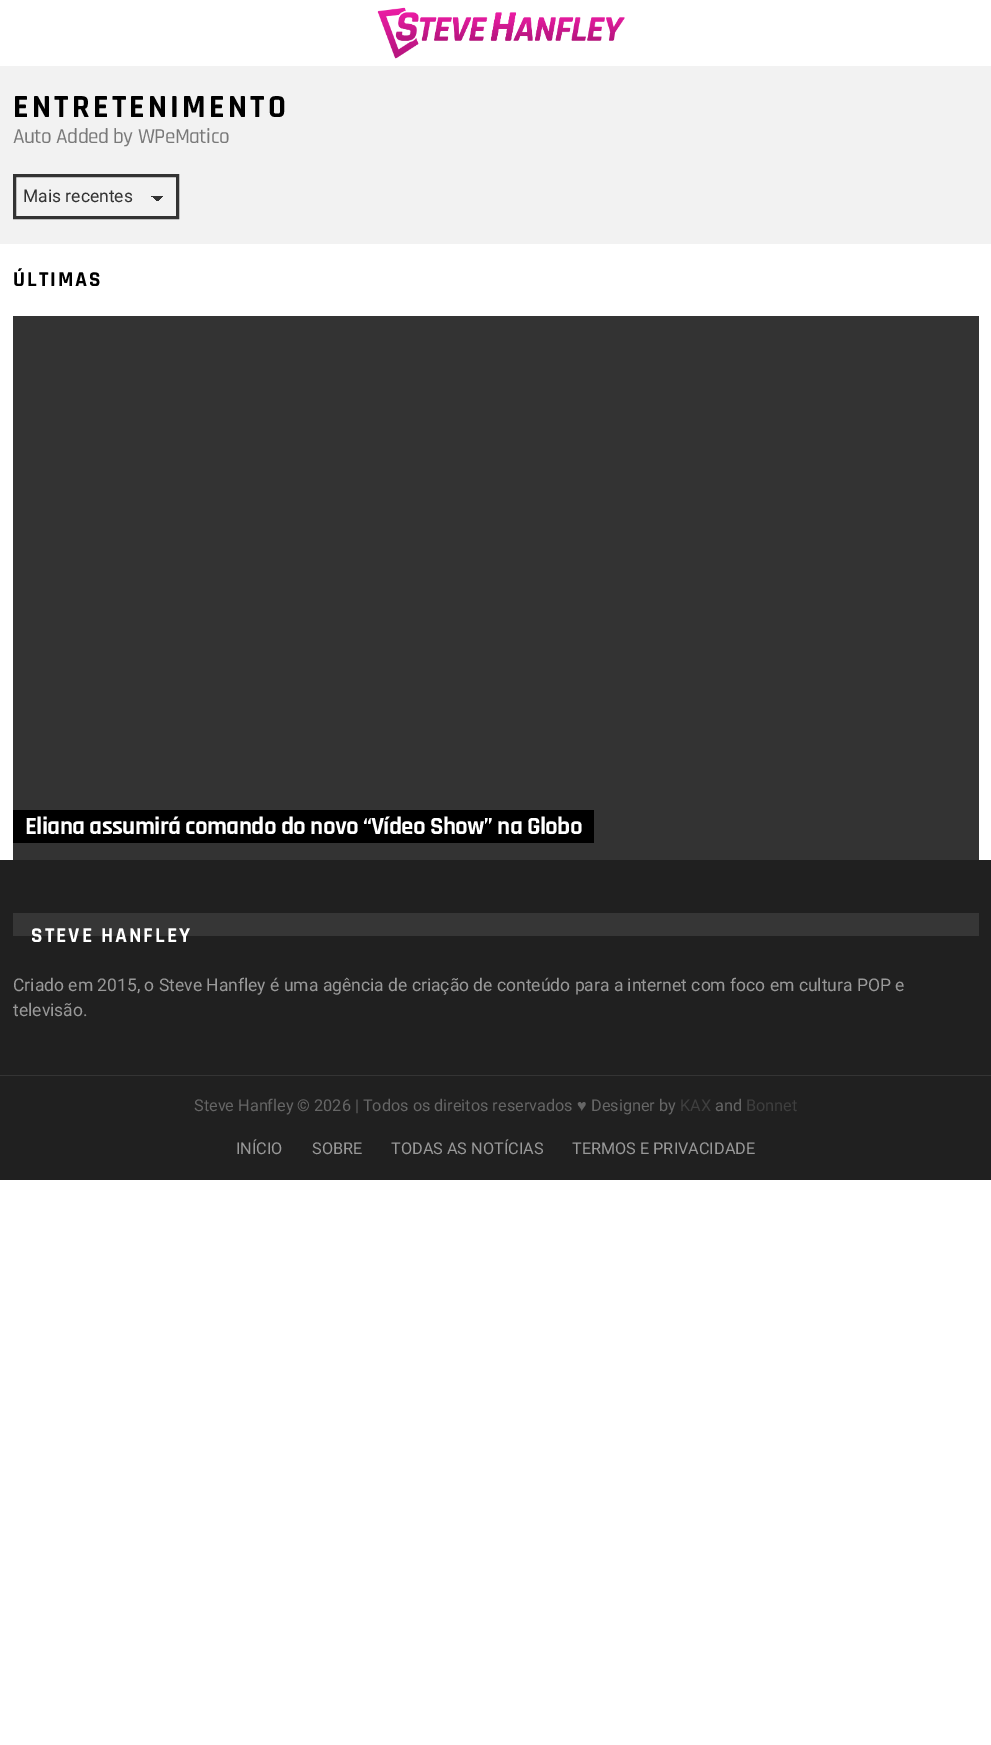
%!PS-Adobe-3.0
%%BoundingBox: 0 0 991 1745
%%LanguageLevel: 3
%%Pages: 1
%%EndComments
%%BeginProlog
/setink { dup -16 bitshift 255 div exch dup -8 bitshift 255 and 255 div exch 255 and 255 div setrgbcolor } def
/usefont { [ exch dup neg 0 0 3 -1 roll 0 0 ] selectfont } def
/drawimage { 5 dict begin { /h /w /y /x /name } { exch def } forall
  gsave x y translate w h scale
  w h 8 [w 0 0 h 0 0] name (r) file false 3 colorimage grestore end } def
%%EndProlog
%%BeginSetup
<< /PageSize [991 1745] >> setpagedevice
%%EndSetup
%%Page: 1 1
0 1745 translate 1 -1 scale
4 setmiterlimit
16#FFFFFF setink
0 0 991 1745 rectfill
(img1.raw) 377 7 248 52 drawimage
16#F2F2F2 setink
0 66 991 178 rectfill
/Rajdhani-Bold 32.5 usefont
16#000000 setink
13 117 moveto 3.25 0 (ENTRETENIMENTO) ashow
/Rajdhani-Medium 21.25 usefont
16#797979 setink
13 143 moveto -0.5 0 (Auto Added by WPeMatico) ashow
gsave 158 196 moveto 164 196 lineto 164 201 lineto 158 201 lineto closepath clip newpath
<< /ShadingType 2 /ColorSpace /DeviceRGB /Coords [158 196 163 202] /Extend [true true] /Function << /FunctionType 3 /Domain [0 1] /Functions [<< /FunctionType 2 /Domain [0 1] /C0 [0.2 0.2 0.2] /C1 [0.2 0.2 0.2] /N 1 >> << /FunctionType 2 /Domain [0 1] /C0 [0.949 0.949 0.949] /C1 [0.949 0.949 0.949] /N 1 >>] /Bounds [0.5] /Encode [0 1 0 1] >> >> shfill grestore
gsave 151 196 moveto 158 196 lineto 158 201 lineto 151 201 lineto closepath clip newpath
<< /ShadingType 2 /ColorSpace /DeviceRGB /Coords [152 202 157 196] /Extend [true true] /Function << /FunctionType 3 /Domain [0 1] /Functions [<< /FunctionType 2 /Domain [0 1] /C0 [0.949 0.949 0.949] /C1 [0.949 0.949 0.949] /N 1 >> << /FunctionType 2 /Domain [0 1] /C0 [0.2 0.2 0.2] /C1 [0.2 0.2 0.2] /N 1 >>] /Bounds [0.5] /Encode [0 1 0 1] >> >> shfill grestore
16#333333 setink
3 setlinewidth
14.5 175.5 163 42 rectstroke
/Roboto-Regular 17.5 usefont
23 202 moveto (Mais recentes) show
/Rajdhani-Bold 21.25 usefont
16#000000 setink
13 286 moveto 2.1 0 (ÚLTIMAS) ashow
16#333333 setink
13 316 966 544 rectfill
16#000000 setink
13 810 moveto 13 843 lineto 569 843 lineto 569 842 lineto 25 842 lineto 25 810 lineto closepath fill
38 842 moveto 38 843 lineto 594 843 lineto 594 810 lineto 581 810 lineto 581 842 lineto closepath fill
25 810 556 32 rectfill
/Rajdhani-Bold 25 usefont
16#FFFFFF setink
25 834 moveto -0.62 0 (Eliana assumirá comando do novo “Vídeo Show” na Globo) ashow
16#202020 setink
0 860 991 215 rectfill
16#363636 setink
13 913 966 23 rectfill
/Rajdhani-Bold 21.25 usefont
16#FFFFFF setink
31 942 moveto 2.1 0 (STEVE HANFLEY) ashow
/Roboto-Regular 17.5 usefont
16#999999 setink
13 991 moveto (Criado em 2015, o Steve Hanfley é uma agência de criação de conteúdo para a internet com foco em cultura POP e) show
13 1016 moveto (televisão.) show
16#343434 setink
0 1075 991 1 rectfill
16#202020 setink
0 1076 991 104 rectfill
/Roboto-Regular 16.25 usefont
16#666666 setink
194 1111 moveto (Steve Hanfley © 2026 | Todos os direitos reservados) show
/LiberationSans-Regular 16.25 usefont
577 1111 moveto (♥) show
/Roboto-Regular 16.25 usefont
591 1111 moveto (Designer by) show
16#3F3F3F setink
680 1111 moveto (KAX) show
16#666666 setink
715 1111 moveto (and) show
16#3F3F3F setink
746 1111 moveto (Bonnet) show
16#999999 setink
[
    [(INÍCIO) 236 1154]
    [(SOBRE) 312 1154]
    [(TODAS AS NOTÍCIAS) 391 1154]
    [(TERMOS E PRIVACIDADE) 572 1154]
] { aload pop moveto show } forall
showpage
%%EOF
